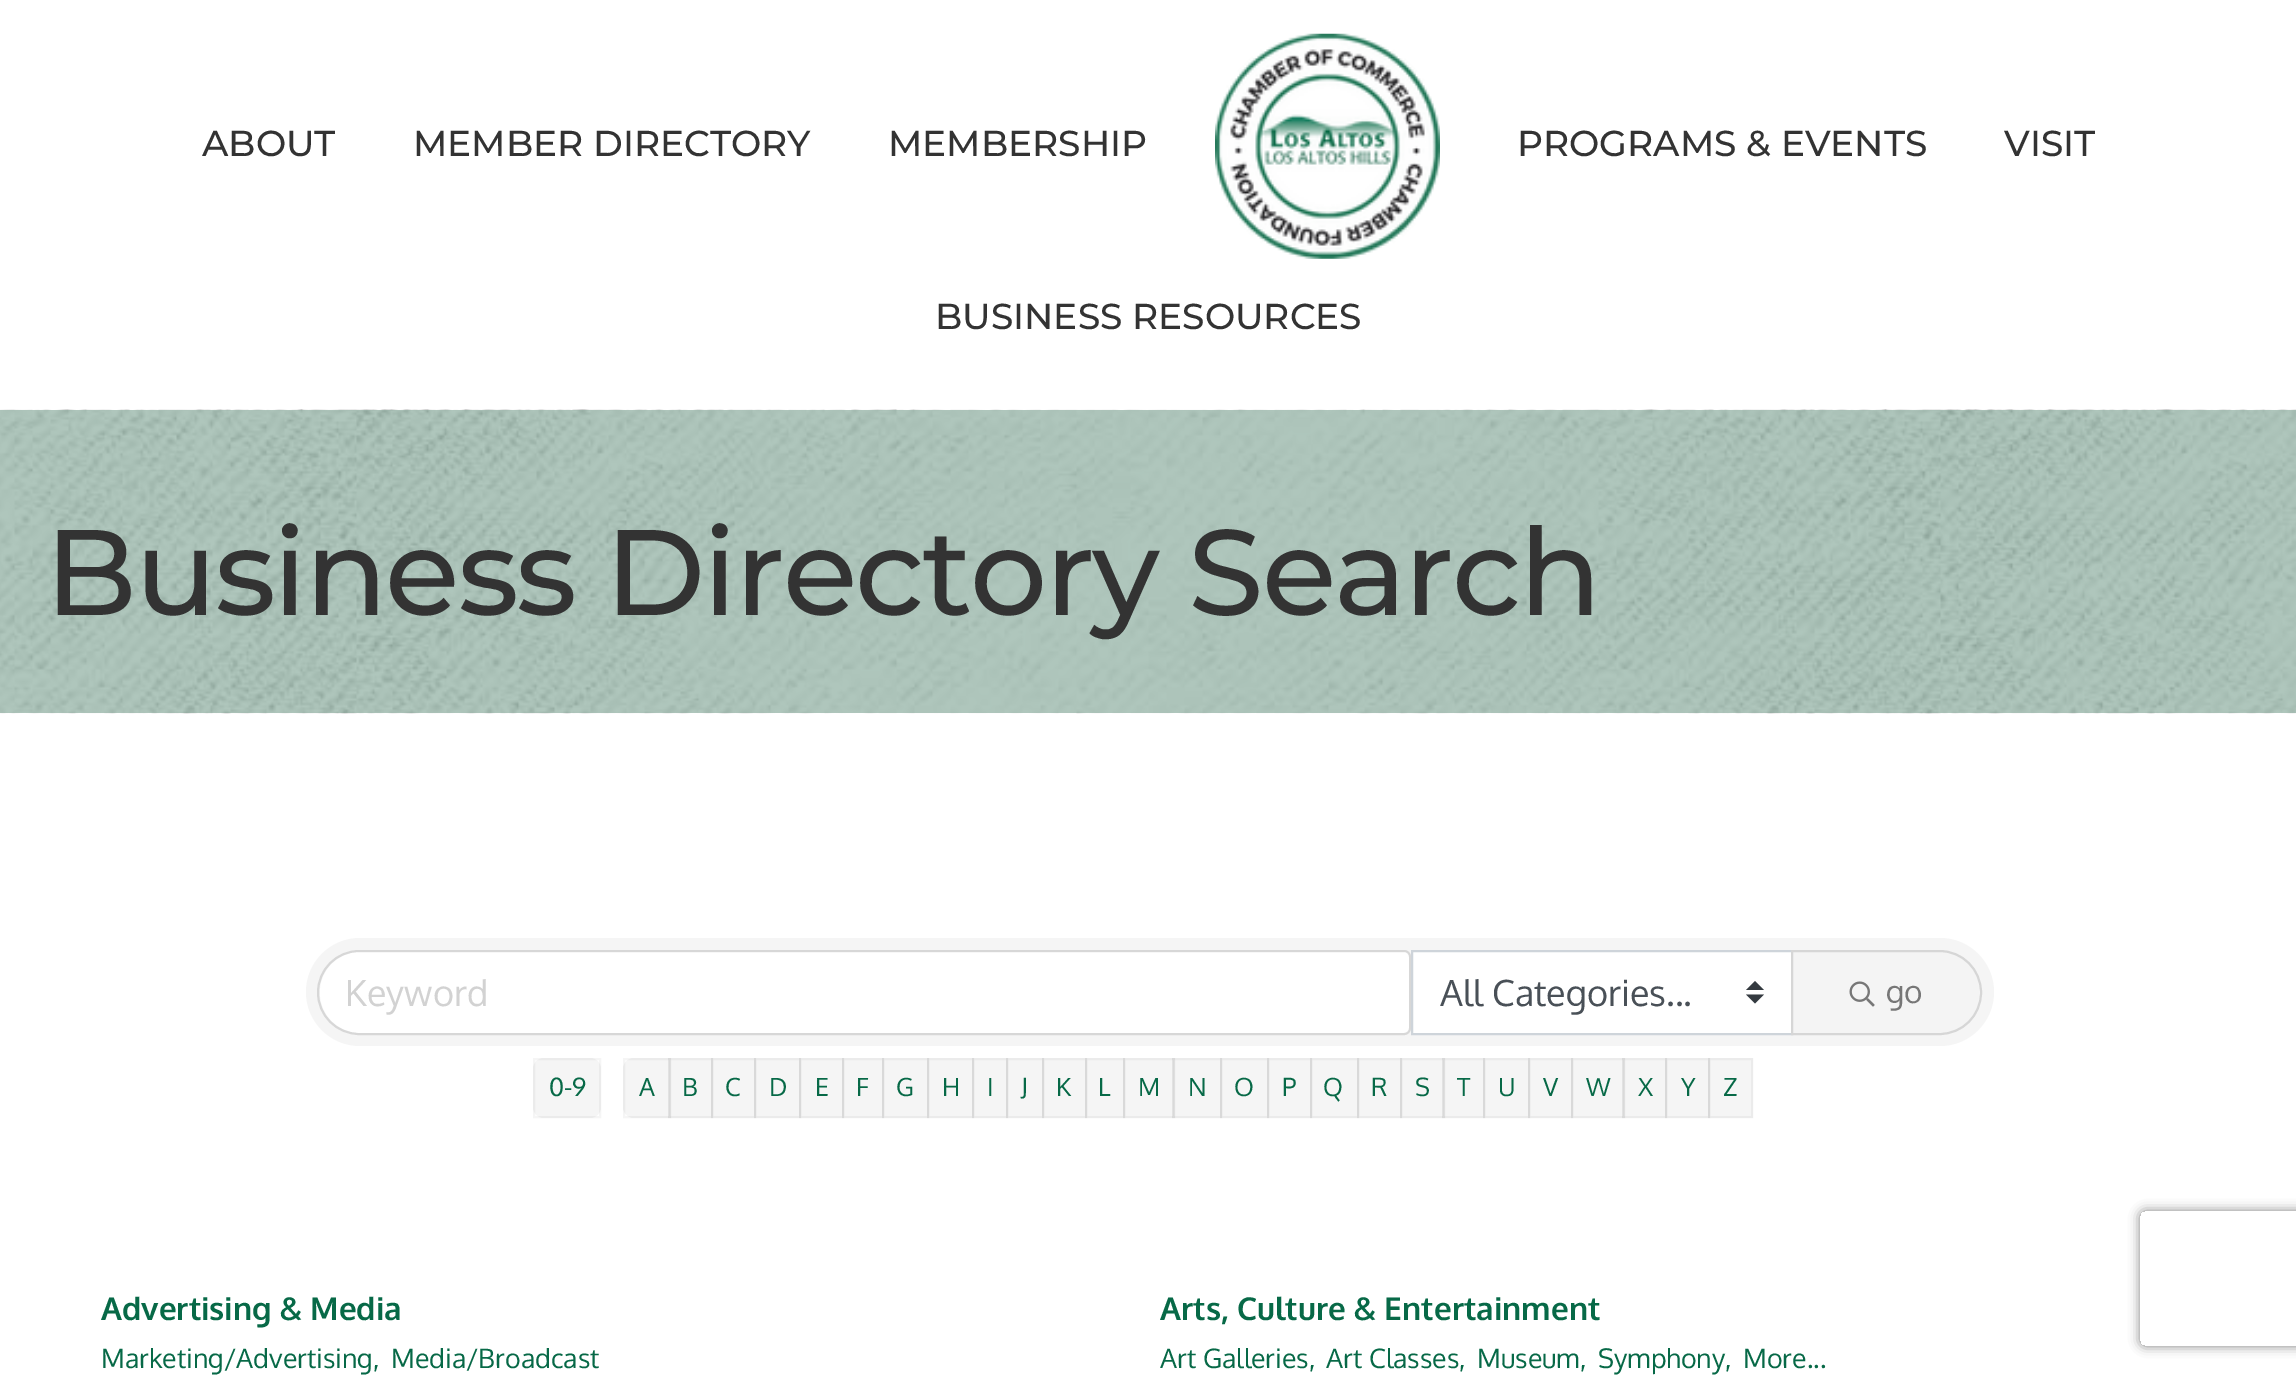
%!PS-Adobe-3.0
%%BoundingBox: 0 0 2296 1377
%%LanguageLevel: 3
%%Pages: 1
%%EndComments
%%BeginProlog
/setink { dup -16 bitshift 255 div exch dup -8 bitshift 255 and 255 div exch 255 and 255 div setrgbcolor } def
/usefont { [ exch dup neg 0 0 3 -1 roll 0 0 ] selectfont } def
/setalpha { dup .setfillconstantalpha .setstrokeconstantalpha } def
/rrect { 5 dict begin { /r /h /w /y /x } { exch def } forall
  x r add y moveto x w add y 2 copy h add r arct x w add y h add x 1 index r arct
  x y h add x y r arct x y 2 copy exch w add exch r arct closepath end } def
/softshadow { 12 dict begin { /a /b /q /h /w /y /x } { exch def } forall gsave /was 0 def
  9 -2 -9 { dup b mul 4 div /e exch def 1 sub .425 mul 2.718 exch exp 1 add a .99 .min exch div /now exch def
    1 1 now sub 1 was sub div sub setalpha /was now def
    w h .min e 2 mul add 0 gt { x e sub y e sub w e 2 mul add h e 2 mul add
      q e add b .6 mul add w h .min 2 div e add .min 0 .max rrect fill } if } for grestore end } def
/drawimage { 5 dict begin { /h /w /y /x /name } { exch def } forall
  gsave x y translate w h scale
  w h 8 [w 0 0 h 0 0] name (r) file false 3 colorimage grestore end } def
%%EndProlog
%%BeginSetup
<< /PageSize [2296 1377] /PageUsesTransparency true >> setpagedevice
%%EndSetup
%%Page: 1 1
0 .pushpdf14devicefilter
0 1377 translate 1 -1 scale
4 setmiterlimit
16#FFFFFF setink
0 0 2296 1377 rectfill
/Montserrat-Medium 36 usefont
16#333333 setink
[
    [(ABOUT) 202 156]
    [(MEMBER DIRECTORY) 413 156]
    [(MEMBERSHIP) 888 156]
] { aload pop moveto show } forall
(img1.raw) 1215 33 225 226 drawimage
[
    [(PROGRAMS & EVENTS) 1517 156]
    [(VISIT) 2004 156]
    [(BUSINESS RESOURCES) 935 329]
] { aload pop moveto show } forall
(img2.raw) 0 409 2296 305 drawimage
/Montserrat-Medium 121.5 usefont
45 615 moveto -2.25 0 (Business Directory Search) ashow
16#F5F5F5 setink
306 938 1688 108 54 rrect fill
16#FFFFFF setink
360.5 952 moveto 1404 952 lineto 1407 952 1409 954 1409 957 curveto 1409 1028 lineto 1409 1031 1407 1033 1404 1033 curveto 360.5 1033 lineto 338 1033 320 1015 320 992.5 curveto 320 970 338 952 360.5 952 curveto closepath fill
0.12 setalpha
16#000000 setink
2 setlinewidth
359.5 951 moveto 1404 951 lineto 1407.5 951 1410 953.5 1410 957 curveto 1410 1028 lineto 1410 1031.5 1407.5 1034 1404 1034 curveto 359.5 1034 lineto 336.5 1034 318 1015.5 318 992.5 curveto 318 969.5 336.5 951 359.5 951 curveto closepath stroke
/Oxygen-Regular 36 usefont
1 setalpha
16#D2D2D2 setink
345 1006 moveto (Keyword) show
16#FFFFFF setink
1413 952 378 81 rectfill
16#343A40 setink
1755 981 moveto 1746 990 lineto 1764 990 lineto closepath 1755 1003.5 moveto 1746 994.5 lineto 1764 994.5 lineto closepath fill
16#CED4DA setink
1412 951 380 83 rectstroke
16#495057 setink
1440 1006 moveto (All Categories...) show
16#F4F4F4 setink
1792 951 moveto 1939.5 951 lineto 1962.5 951 1981 969.5 1981 992.5 curveto 1981 1015.5 1962.5 1034 1939.5 1034 curveto 1792 1034 lineto closepath gsave fill grestore
16#D6D6D6 setink
stroke
(img3.raw) 1849 981 26 26 drawimage
/Oxygen-Regular 31.5 usefont
16#777777 setink
1886 1003 moveto (go) show
16#F5F5F5 setink
533 1058 68 60 11 rrect fill
0.04 setalpha
16#000000 setink
534 1059 66 58 rectstroke
/Oxygen-Regular 25 usefont
1 setalpha
16#076947 setink
549 1096 moveto (0-9) show
16#F5F5F5 setink
634 1058 moveto 671 1058 lineto 671 1118 lineto 634 1118 lineto 628 1118 623 1113 623 1107 curveto 623 1069 lineto 623 1063 628 1058 634 1058 curveto closepath fill
0.04 setalpha
16#000000 setink
624 1059 46 58 rectstroke
1 setalpha
16#076947 setink
639 1096 moveto (A) show
0.04 setalpha
16#000000 setink
668 1058 45 60 rectfill
669 1059 43 58 rectstroke
1 setalpha
16#076947 setink
682 1096 moveto (B) show
0.04 setalpha
16#000000 setink
711 1058 45 60 rectfill
712 1059 43 58 rectstroke
1 setalpha
16#076947 setink
725 1096 moveto (C) show
0.04 setalpha
16#000000 setink
754 1058 47 60 rectfill
755 1059 45 58 rectstroke
1 setalpha
16#076947 setink
769 1096 moveto (D) show
0.04 setalpha
16#000000 setink
799 1058 45 60 rectfill
800 1059 43 58 rectstroke
1 setalpha
16#076947 setink
815 1096 moveto (E) show
0.04 setalpha
16#000000 setink
842 1058 42 60 rectfill
843 1059 40 58 rectstroke
1 setalpha
16#076947 setink
856 1096 moveto (F) show
0.04 setalpha
16#000000 setink
882 1058 47 60 rectfill
883 1059 45 58 rectstroke
1 setalpha
16#076947 setink
896 1096 moveto (G) show
0.04 setalpha
16#000000 setink
927 1058 47 60 rectfill
928 1059 45 58 rectstroke
1 setalpha
16#076947 setink
942 1096 moveto (H) show
0.04 setalpha
16#000000 setink
972 1058 36 60 rectfill
973 1059 34 58 rectstroke
1 setalpha
16#076947 setink
987 1096 moveto (I) show
0.04 setalpha
16#000000 setink
1006 1058 38 60 rectfill
1007 1059 36 58 rectstroke
1 setalpha
16#076947 setink
1021 1096 moveto (J) show
0.04 setalpha
16#000000 setink
1042 1058 45 60 rectfill
1043 1059 43 58 rectstroke
1 setalpha
16#076947 setink
1056 1096 moveto (K) show
0.04 setalpha
16#000000 setink
1085 1058 40 60 rectfill
1086 1059 38 58 rectstroke
1 setalpha
16#076947 setink
1098 1096 moveto (L) show
0.04 setalpha
16#000000 setink
1123 1058 52 60 rectfill
1124 1059 50 58 rectstroke
1 setalpha
16#076947 setink
1138 1096 moveto (M) show
0.04 setalpha
16#000000 setink
1172 1058 50 60 rectfill
1173 1059 48 58 rectstroke
1 setalpha
16#076947 setink
1188 1096 moveto (N) show
0.04 setalpha
16#000000 setink
1220 1058 49 60 rectfill
1221 1059 47 58 rectstroke
1 setalpha
16#076947 setink
1234 1096 moveto (O) show
0.04 setalpha
16#000000 setink
1267 1058 45 60 rectfill
1268 1059 43 58 rectstroke
1 setalpha
16#076947 setink
1282 1096 moveto (P) show
0.04 setalpha
16#000000 setink
1310 1058 49 60 rectfill
1311 1059 47 58 rectstroke
1 setalpha
16#076947 setink
1323 1096 moveto (Q) show
0.04 setalpha
16#000000 setink
1357 1058 45 60 rectfill
1358 1059 43 58 rectstroke
1 setalpha
16#076947 setink
1371 1096 moveto (R) show
0.04 setalpha
16#000000 setink
1400 1058 45 60 rectfill
1401 1059 43 58 rectstroke
1 setalpha
16#076947 setink
1415 1096 moveto (S) show
0.04 setalpha
16#000000 setink
1442 1058 43 60 rectfill
1443 1059 41 58 rectstroke
1 setalpha
16#076947 setink
1457 1096 moveto (T) show
0.04 setalpha
16#000000 setink
1483 1058 47 60 rectfill
1484 1059 45 58 rectstroke
1 setalpha
16#076947 setink
1498 1096 moveto (U) show
0.04 setalpha
16#000000 setink
1528 1058 45 60 rectfill
1529 1059 43 58 rectstroke
1 setalpha
16#076947 setink
1543 1096 moveto (V) show
0.04 setalpha
16#000000 setink
1571 1058 54 60 rectfill
1572 1059 52 58 rectstroke
1 setalpha
16#076947 setink
1586 1096 moveto (W) show
0.04 setalpha
16#000000 setink
1622 1058 45 60 rectfill
1623 1059 43 58 rectstroke
1 setalpha
16#076947 setink
1638 1096 moveto (X) show
0.04 setalpha
16#000000 setink
1665 1058 45 60 rectfill
1666 1059 43 58 rectstroke
1 setalpha
16#076947 setink
1681 1096 moveto (Y) show
0.04 setalpha
16#000000 setink
1708 1058 45 60 rectfill
1709 1059 43 58 rectstroke
1 setalpha
16#076947 setink
1723 1096 moveto (Z) show
/Oxygen-Bold 31.5 usefont
101 1320 moveto (Advertising & Media) show
/Oxygen-Regular 26.75 usefont
101 1368 moveto (Marketing/Advertising,) show
391 1368 moveto (Media/Broadcast) show
/Oxygen-Bold 31.5 usefont
1160 1320 moveto (Arts, Culture & Entertainment) show
/Oxygen-Regular 26.75 usefont
[
    [(Art Galleries,) 1160 1368]
    [(Art Classes,) 1326 1368]
    [(Museum,) 1477 1368]
    [(Symphony,) 1598 1368]
    [(More...) 1743 1368]
] { aload pop moveto show } forall
gsave
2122 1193 moveto 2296 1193 lineto 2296 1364 lineto 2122 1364 lineto closepath 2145 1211 moveto 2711 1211 lineto 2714 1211 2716 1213 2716 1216 curveto 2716 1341 lineto 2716 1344 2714 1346 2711 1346 curveto 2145 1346 lineto 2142 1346 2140 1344 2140 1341 curveto 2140 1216 lineto 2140 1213 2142 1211 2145 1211 curveto closepath eoclip newpath
16#808080 setink
2140 1211 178 135 5 5.5 1 softshadow
grestore
.poppdf14devicefilter showpage
%%EOF
